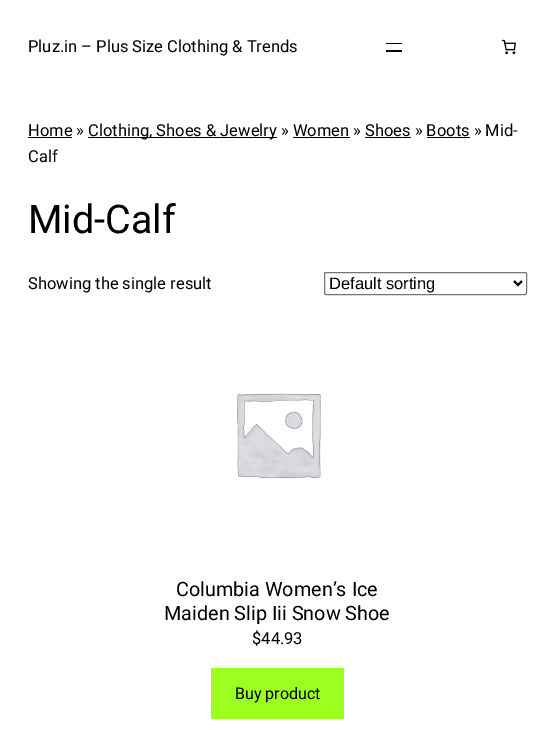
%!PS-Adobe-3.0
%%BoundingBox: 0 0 555 730
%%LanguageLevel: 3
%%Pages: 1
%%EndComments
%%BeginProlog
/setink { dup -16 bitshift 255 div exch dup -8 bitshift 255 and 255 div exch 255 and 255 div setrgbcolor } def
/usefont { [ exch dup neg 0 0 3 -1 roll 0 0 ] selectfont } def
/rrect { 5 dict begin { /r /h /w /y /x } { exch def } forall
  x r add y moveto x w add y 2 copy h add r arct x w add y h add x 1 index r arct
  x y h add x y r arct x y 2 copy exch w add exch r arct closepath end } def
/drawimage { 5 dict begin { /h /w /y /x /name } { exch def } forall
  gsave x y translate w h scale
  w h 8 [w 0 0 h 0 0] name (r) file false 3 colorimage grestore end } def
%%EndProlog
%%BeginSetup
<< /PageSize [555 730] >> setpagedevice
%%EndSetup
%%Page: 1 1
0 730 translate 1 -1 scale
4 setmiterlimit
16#FFFFFF setink
0 0 555 730 rectfill
/Roboto-Regular 16.5 usefont
16#000000 setink
28 52 moveto (Pluz.in – Plus Size Clothing & Trends) show
386 43 16 1 rectfill
386 50 16 2 rectfill
(img1.raw) 501 39 15 16 drawimage
28 136 moveto (Home ») show
28 137 44 1 rectfill
88 137 189 1 rectfill
88 136 moveto (Clothing, Shoes & Jewelry » Women » Shoes » Boots » Mid-) show
[
    [293 137 57 1 16#000000]
    [365 137 46 1 16#000000]
    [427 137 43 1 16#000000]
] { aload pop setink rectfill } forall
28 162 moveto (Calf) show
/Roboto-Regular 39.5 usefont
28 233 moveto (Mid-Calf) show
/Roboto-Regular 16.5 usefont
28 289 moveto (Showing the single result) show
16#767676 setink
324.5 272.5 202 22 1.5 rrect stroke
16#000000 setink
2 setlinewidth
514 281 moveto 518 285 lineto 522 281 lineto stroke
/LiberationSans-Regular 16.5 usefont
329 289 moveto (Default sorting) show
(img2.raw) 237 393 84 86 drawimage
/Roboto-Regular 19.8 usefont
176 596 moveto (Columbia Women’s Ice) show
164 620 moveto (Maiden Slip Iii Snow Shoe) show
/Roboto-Regular 16.5 usefont
252 644 moveto ($44.93) show
16#9DFF20 setink
211 668 133 51 rectfill
/Roboto-Regular 16 usefont
16#000000 setink
235 699 moveto (Buy product) show
showpage
%%EOF
